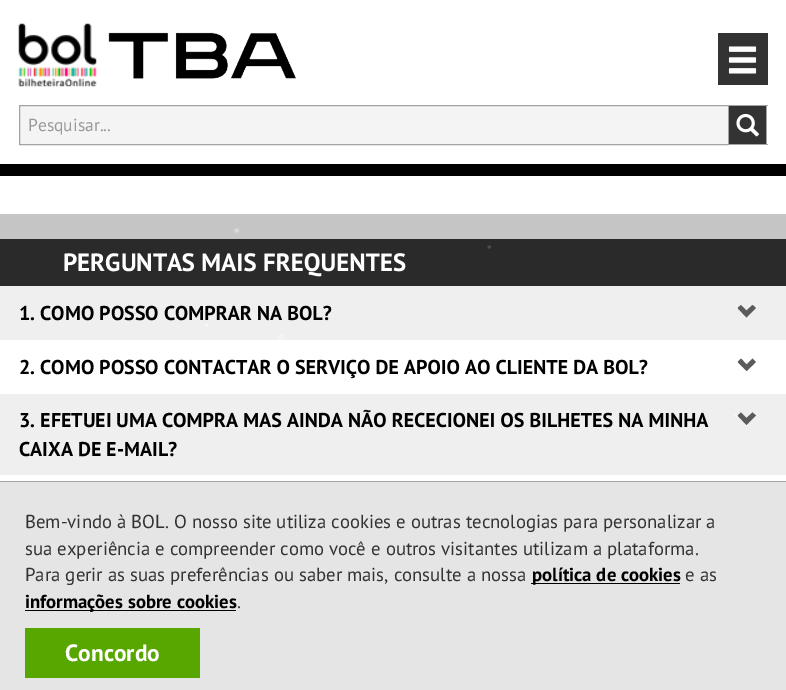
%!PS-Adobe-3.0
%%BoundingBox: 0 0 786 690
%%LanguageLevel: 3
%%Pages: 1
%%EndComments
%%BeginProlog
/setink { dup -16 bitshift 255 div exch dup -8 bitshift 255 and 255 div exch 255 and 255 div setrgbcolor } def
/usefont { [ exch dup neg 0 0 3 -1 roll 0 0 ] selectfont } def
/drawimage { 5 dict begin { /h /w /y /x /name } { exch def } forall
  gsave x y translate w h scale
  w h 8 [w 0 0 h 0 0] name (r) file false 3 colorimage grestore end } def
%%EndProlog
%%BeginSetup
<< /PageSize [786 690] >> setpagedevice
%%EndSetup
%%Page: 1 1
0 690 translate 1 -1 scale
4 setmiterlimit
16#C5C5C5 setink
0 0 786 690 rectfill
16#FFFFFF setink
0 0 786 164 rectfill
16#000000 setink
0 164 786 12 rectfill
(img1.raw) 18 23 79 64 drawimage
(img2.raw) 108 32 189 47 drawimage
16#333333 setink
718 33 50 52 rectfill
(img3.raw) 728 46 29 28 drawimage
16#F4F4F4 setink
19.5 105.5 moveto 728.5 105.5 lineto 728.5 144.5 lineto 19.5 144.5 lineto closepath gsave fill grestore
16#A3A3A3 setink
stroke
/PTSans-Regular 17.5 usefont
16#999999 setink
28 131 moveto (Pesquisar...) show
[
    [729 105 39 1 16#A3A3A3]
    [766 105 1 40 16#A3A3A3]
    [729 144 39 1 16#A3A3A3]
    [729 106 37 38 16#333333]
] { aload pop setink rectfill } forall
(img4.raw) 736 113 23 24 drawimage
[
    [0 176 786 38 16#FFFFFF]
    [0 340 786 141 16#FFFFFF]
    [0 239 786 47 16#2A2A2A]
] { aload pop setink rectfill } forall
/PTSans-Bold 25 usefont
16#FFFFFF setink
63 271 moveto (PERGUNTAS MAIS FREQUENTES) show
16#EFEFEF setink
0 286 786 54 rectfill
/PTSans-Bold 20 usefont
16#000000 setink
19 320 moveto (1. COMO POSSO COMPRAR NA BOL?) show
16#5B5B5B setink
756 308 moveto 746.5 317.5 lineto 737.5 308 lineto 741 305 lineto 746.5 310.5 lineto 752.5 305 lineto closepath fill
16#000000 setink
19 374 moveto (2. COMO POSSO CONTACTAR O SERVIÇO DE APOIO AO CLIENTE DA BOL?) show
16#5B5B5B setink
756 362 moveto 746.5 371 lineto 737.5 362 lineto 741 358.5 lineto 746.5 364.5 lineto 752.5 358.5 lineto closepath fill
16#EFEFEF setink
0 394 786 81 rectfill
16#000000 setink
19 427 moveto (3. EFETUEI UMA COMPRA MAS AINDA NÃO RECECIONEI OS BILHETES NA MINHA) show
16#5B5B5B setink
756 415.5 moveto 746.5 425 lineto 737.5 415.5 lineto 741 412.5 lineto 746.5 418 lineto 752.5 412.5 lineto closepath fill
(img5.raw) 182 228 556 253 drawimage
16#000000 setink
19 456 moveto (CAIXA DE E-MAIL?) show
16#E5E5E5 setink
0 482 786 208 rectfill
16#A3A3A3 setink
0 481 786 1 rectfill
/PTSans-Regular 18.75 usefont
16#333333 setink
[
    [(Bem-vindo à BOL. O nosso site utiliza cookies e outras tecnologias para personalizar a) 25 528]
    [(sua experiência e compreender como você e outros visitantes utilizam a plataforma.) 25 555]
    [(Para gerir as suas preferências ou saber mais, consulte a nossa) 25 581]
] { aload pop moveto show } forall
16#000000 setink
531 583 149 1 rectfill
/PTSans-Bold 18.75 usefont
532 581 moveto (política de cookies) show
/PTSans-Regular 18.75 usefont
16#333333 setink
685 581 moveto (e as) show
16#000000 setink
25 610 211 1 rectfill
/PTSans-Bold 18.75 usefont
25 608 moveto (informações sobre cookies) show
/PTSans-Regular 18.75 usefont
16#333333 setink
237 608 moveto (.) show
16#58A600 setink
25 628 175 50 rectfill
/PTSans-Bold 23.5 usefont
16#FFFFFF setink
65 661 moveto (Concordo) show
showpage
%%EOF
